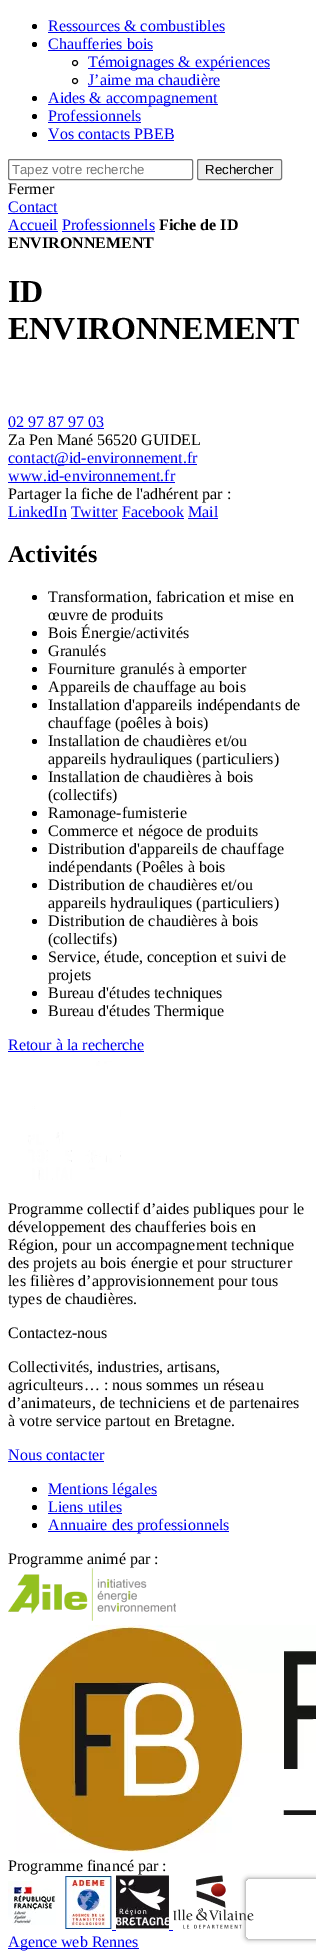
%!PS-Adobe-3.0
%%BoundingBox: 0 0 316 1953
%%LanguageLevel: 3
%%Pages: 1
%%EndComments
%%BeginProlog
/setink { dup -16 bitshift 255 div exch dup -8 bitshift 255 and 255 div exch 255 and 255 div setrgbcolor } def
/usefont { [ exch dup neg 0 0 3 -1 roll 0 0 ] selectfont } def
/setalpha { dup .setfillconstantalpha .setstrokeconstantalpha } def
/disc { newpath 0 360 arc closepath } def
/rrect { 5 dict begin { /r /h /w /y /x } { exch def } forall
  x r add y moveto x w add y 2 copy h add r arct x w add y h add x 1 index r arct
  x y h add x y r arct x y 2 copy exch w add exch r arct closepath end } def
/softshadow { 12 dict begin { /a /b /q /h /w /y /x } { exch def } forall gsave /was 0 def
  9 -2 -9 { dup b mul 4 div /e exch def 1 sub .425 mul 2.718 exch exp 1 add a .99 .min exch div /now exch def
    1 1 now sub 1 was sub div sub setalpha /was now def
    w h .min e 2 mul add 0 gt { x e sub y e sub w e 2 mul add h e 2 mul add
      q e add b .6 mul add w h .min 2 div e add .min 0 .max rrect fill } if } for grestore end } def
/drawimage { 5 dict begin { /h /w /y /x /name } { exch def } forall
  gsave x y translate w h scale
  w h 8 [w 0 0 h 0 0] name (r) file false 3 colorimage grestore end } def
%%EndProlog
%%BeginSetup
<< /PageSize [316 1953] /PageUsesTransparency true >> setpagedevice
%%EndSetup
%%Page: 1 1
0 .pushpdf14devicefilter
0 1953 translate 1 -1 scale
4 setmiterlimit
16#FFFFFF setink
0 0 316 1953 rectfill
16#000000 setink
34.5 26.5 2.5 disc fill
/LiberationSerif-Regular 16 usefont
16#0000EE setink
48 31 moveto (Ressources & combustibles) show
48 32 177 1 rectfill
16#000000 setink
34.5 44.5 2.5 disc fill
16#0000EE setink
48 49 moveto (Chaufferies bois) show
48 50 105 1 rectfill
16#000000 setink
75 63 2.5 disc stroke
16#0000EE setink
88 68 182 1 rectfill
88 67 moveto (Témoignages & expériences) show
16#000000 setink
75 81 2.5 disc stroke
16#0000EE setink
88 85 moveto (J’aime ma chaudière) show
88 86 132 1 rectfill
16#000000 setink
34.5 98.5 2.5 disc fill
16#0000EE setink
48 104 170 1 rectfill
48 103 moveto (Aides & accompagnement) show
16#000000 setink
34.5 116.5 2.5 disc fill
16#0000EE setink
48 121 moveto (Professionnels) show
48 122 93 1 rectfill
16#000000 setink
34.5 134.5 2.5 disc fill
16#0000EE setink
48 139 moveto (Vos contacts PBEB) show
48 140 126 1 rectfill
16#767676 setink
8.5 159.5 184 20 1.5 rrect stroke
/LiberationSans-Regular 13.25 usefont
16#757575 setink
12 174 moveto (Tapez votre recherche) show
16#EFEFEF setink
197.5 159.5 84 20 1.5 rrect gsave fill grestore
16#767676 setink
stroke
16#000000 setink
205 174 moveto (Rechercher) show
/LiberationSerif-Regular 16 usefont
8 194 moveto (Fermer) show
16#0000EE setink
8 212 moveto (Contact) show
8 213 50 1 rectfill
8 230 moveto (Accueil Professionnels) show
8 231 50 1 rectfill
62 231 93 1 rectfill
/LiberationSerif-Bold 16 usefont
16#000000 setink
159 230 moveto (Fiche de ID) show
8 248 moveto (ENVIRONNEMENT) show
/LiberationSerif-Bold 32 usefont
8 302 moveto (ID) show
8 339 moveto (ENVIRONNEMENT) show
/LiberationSerif-Regular 16 usefont
16#0000EE setink
8 427 moveto (02 97 87 97 03) show
8 428 96 1 rectfill
16#000000 setink
8 445 moveto (Za Pen Mané 56520 GUIDEL) show
16#0000EE setink
8 464 189 1 rectfill
8 463 moveto (contact@id-environnement.fr) show
8 481 moveto (www.id-environnement.fr) show
8 482 167 1 rectfill
16#000000 setink
8 499 moveto (Partager la fiche de l'adhérent par :) show
16#0000EE setink
8 517 moveto (LinkedIn Twitter Facebook Mail) show
[
    [8 518 59 1 16#0000EE]
    [71 518 47 1 16#0000EE]
    [122 518 62 1 16#0000EE]
    [188 518 30 1 16#0000EE]
] { aload pop setink rectfill } forall
/LiberationSerif-Bold 24 usefont
16#000000 setink
8 562 moveto (Activités) show
34.5 597.5 2.5 disc fill
/LiberationSerif-Regular 16 usefont
48 602 moveto (Transformation, fabrication et mise en) show
48 620 moveto (œuvre de produits) show
34.5 633.5 2.5 disc fill
48 638 moveto (Bois Énergie/activités) show
34.5 651.5 2.5 disc fill
48 656 moveto (Granulés) show
34.5 669.5 2.5 disc fill
48 674 moveto (Fourniture granulés à emporter) show
34.5 687.5 2.5 disc fill
48 692 moveto (Appareils de chauffage au bois) show
34.5 705.5 2.5 disc fill
48 710 moveto (Installation d'appareils indépendants de) show
48 728 moveto (chauffage \(poêles à bois\)) show
34.5 741.5 2.5 disc fill
48 746 moveto (Installation de chaudières et/ou) show
48 764 moveto (appareils hydrauliques \(particuliers\)) show
34.5 777.5 2.5 disc fill
48 782 moveto (Installation de chaudières à bois) show
48 800 moveto (\(collectifs\)) show
34.5 813.5 2.5 disc fill
48 818 moveto (Ramonage-fumisterie) show
34.5 831.5 2.5 disc fill
48 836 moveto (Commerce et négoce de produits) show
34.5 849.5 2.5 disc fill
48 854 moveto (Distribution d'appareils de chauffage) show
48 872 moveto (indépendants \(Poêles à bois) show
34.5 885.5 2.5 disc fill
48 890 moveto (Distribution de chaudières et/ou) show
48 908 moveto (appareils hydrauliques \(particuliers\)) show
34.5 921.5 2.5 disc fill
48 926 moveto (Distribution de chaudières à bois) show
48 944 moveto (\(collectifs\)) show
34.5 957.5 2.5 disc fill
48 962 moveto (Service, étude, conception et suivi de) show
48 980 moveto (projets) show
34.5 993.5 2.5 disc fill
48 998 moveto (Bureau d'études techniques) show
34.5 1011.5 2.5 disc fill
48 1016 moveto (Bureau d'études Thermique) show
16#0000EE setink
8 1050 moveto (Retour à la recherche) show
8 1051 136 1 rectfill
(img1.raw) 28 1061 93 119 drawimage
16#000000 setink
[
    [(Programme collectif d’aides publiques pour le) 8 1214]
    [(développement des chaufferies bois en) 8 1232]
    [(Région, pour un accompagnement technique) 8 1250]
    [(des projets au bois énergie et pour structurer) 8 1268]
    [(les filières d’approvisionnement pour tous) 8 1286]
    [(types de chaudières.) 8 1304]
    [(Contactez-nous) 8 1338]
    [(Collectivités, industries, artisans,) 8 1372]
    [(agriculteurs… : nous sommes un réseau) 8 1390]
    [(d’animateurs, de techniciens et de partenaires) 8 1408]
    [(à votre service partout en Bretagne.) 8 1426]
] { aload pop moveto show } forall
16#0000EE setink
8 1460 moveto (Nous contacter) show
8 1461 96 1 rectfill
16#000000 setink
34.5 1489.5 2.5 disc fill
16#0000EE setink
48 1495 109 1 rectfill
48 1494 moveto (Mentions légales) show
16#000000 setink
34.5 1507.5 2.5 disc fill
16#0000EE setink
48 1512 moveto (Liens utiles) show
48 1513 74 1 rectfill
16#000000 setink
34.5 1525.5 2.5 disc fill
16#0000EE setink
48 1531 181 1 rectfill
48 1530 moveto (Annuaire des professionnels) show
16#000000 setink
8 1564 moveto (Programme animé par :) show
(img2.raw) 8 1568 168 53 drawimage
(img3.raw) 16 1625 300 228 drawimage
8 1871 moveto (Programme financé par :) show
(img4.raw) 8 1881 48 44 drawimage
(img5.raw) 65 1876 47 53 drawimage
(img6.raw) 116 1875 53 54 drawimage
(img7.raw) 173 1875 81 54 drawimage
[
    [112 1930 4 1 16#0000EE]
    [169 1930 4 1 16#0000EE]
    [8 1948 131 1 16#0000EE]
] { aload pop setink rectfill } forall
8 1947 moveto (Agence web Rennes) show
gsave
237 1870 moveto 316 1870 lineto 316 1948 lineto 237 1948 lineto closepath 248 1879 moveto 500 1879 lineto 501 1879 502 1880 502 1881 curveto 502 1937 lineto 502 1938 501 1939 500 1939 curveto 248 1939 lineto 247 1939 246 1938 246 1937 curveto 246 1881 lineto 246 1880 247 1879 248 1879 curveto closepath eoclip newpath
16#808080 setink
246 1879 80 60 2 2.5 1 softshadow
grestore
.poppdf14devicefilter showpage
%%EOF
